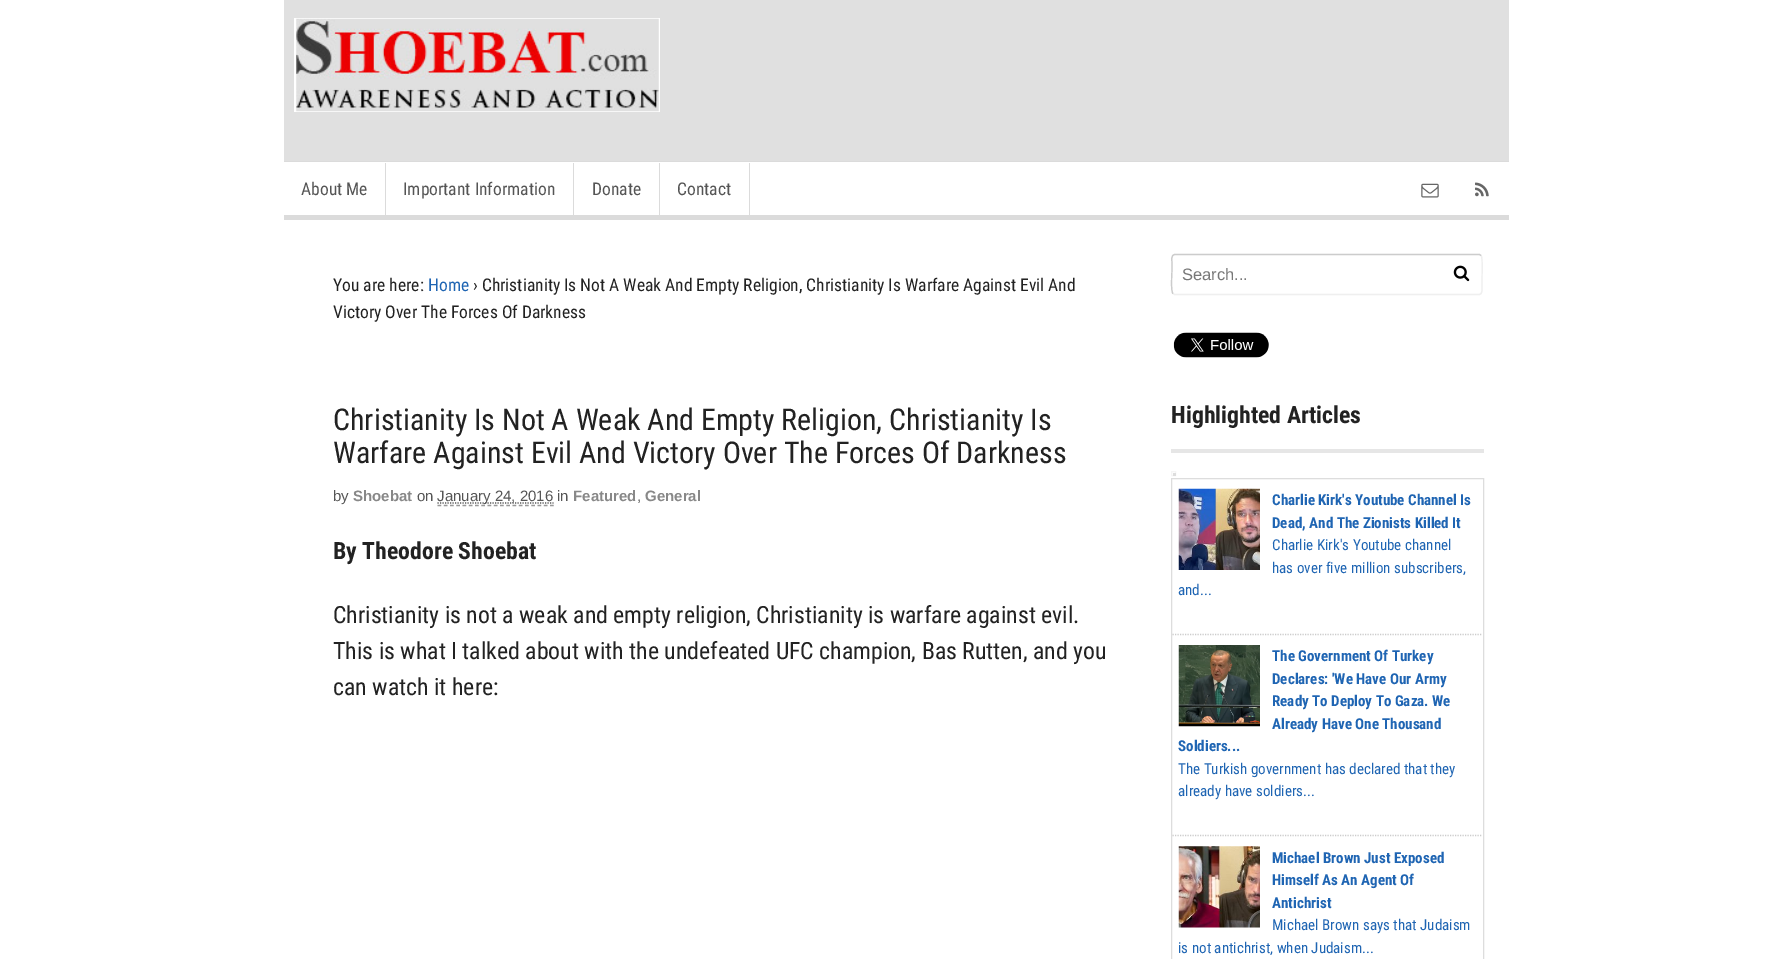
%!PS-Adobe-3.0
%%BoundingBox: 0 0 1791 959
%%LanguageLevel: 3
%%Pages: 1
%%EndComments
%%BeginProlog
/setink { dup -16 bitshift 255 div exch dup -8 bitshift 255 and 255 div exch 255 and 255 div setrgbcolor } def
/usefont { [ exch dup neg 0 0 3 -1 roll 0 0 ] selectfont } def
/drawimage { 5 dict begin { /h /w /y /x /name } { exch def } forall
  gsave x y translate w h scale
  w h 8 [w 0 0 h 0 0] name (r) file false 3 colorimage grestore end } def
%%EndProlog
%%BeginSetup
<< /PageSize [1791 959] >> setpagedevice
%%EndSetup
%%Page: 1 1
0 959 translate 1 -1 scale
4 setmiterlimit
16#FFFFFF setink
0 0 1791 959 rectfill
16#E0E0E0 setink
284 0 1225 161 rectfill
(img1.raw) 294 18 366 94 drawimage
[
    [284 161 1225 1 16#DBDBDB]
    [284 215 1225 5 16#DBDBDB]
    [385 163 1 52 16#DBDBDB]
] { aload pop setink rectfill } forall
/RobotoCondensed-Regular 17.5 usefont
16#555555 setink
301 195 moveto (About Me) show
16#DBDBDB setink
573 163 1 52 rectfill
16#555555 setink
403 195 moveto (Important Information) show
16#DBDBDB setink
659 163 1 52 rectfill
16#555555 setink
592 195 moveto (Donate) show
16#DBDBDB setink
749 163 1 52 rectfill
16#555555 setink
677 195 moveto (Contact) show
(img2.raw) 1421 183 18 15 drawimage
(img3.raw) 1475 182 14 15 drawimage
16#222222 setink
333 291 moveto (You are here:) show
16#1F65B3 setink
428 291 moveto (Home) show
16#222222 setink
473 291 moveto (› Christianity Is Not A Weak And Empty Religion, Christianity Is Warfare Against Evil And) show
333 318 moveto (Victory Over The Forces Of Darkness) show
/RobotoCondensed-Regular 30 usefont
333 430 moveto (Christianity Is Not A Weak And Empty Religion, Christianity Is) show
333 463 moveto (Warfare Against Evil And Victory Over The Forces Of Darkness) show
/LiberationSans-Regular 15 usefont
16#555555 setink
333 501 moveto (by) show
/LiberationSans-Bold 15 usefont
16#888888 setink
353 501 moveto (Shoebat) show
/LiberationSans-Regular 15 usefont
16#555555 setink
417 501 moveto (on) show
16#999999 setink
1.2 setlinewidth
[3.75 2.5] 0 setdash
437.5 505.5 moveto 554 505.5 lineto stroke
16#555555 setink
[1.25 1.25] 0 setdash
437.5 503 moveto 553.5 503 lineto stroke
437 501 moveto (January 24, 2016 in) show
/LiberationSans-Bold 15 usefont
16#888888 setink
573 501 moveto (Featured) show
/LiberationSans-Regular 15 usefont
16#555555 setink
637 501 moveto (,) show
/LiberationSans-Bold 15 usefont
16#888888 setink
645 501 moveto (General) show
/RobotoCondensed-Bold 23.75 usefont
16#222222 setink
333 559 moveto (By Theodore Shoebat) show
/RobotoCondensed-Regular 23.75 usefont
[
    [(Christianity is not a weak and empty religion, Christianity is warfare against evil.) 333 623]
    [(This is what I talked about with the undefeated UFC champion, Bas Rutten, and you) 333 659]
    [(can watch it here:) 333 695]
] { aload pop moveto show } forall
16#EFEFEF setink
[] 0 setdash
1481 255.5 moveto 1483 257.5 1482 276 1482 280 curveto 1482 285.5 lineto 1482 288 1483 294.5 1479 294.5 curveto 1174.5 294.5 lineto 1173 293.5 lineto stroke
16#CCCCCC setink
1173 293.5 moveto 1170.5 291.5 1172 272.5 1172 269 curveto 1172 263 lineto 1172 261 1170.5 254.5 1175 254.5 curveto 1479.5 254.5 lineto 1481 255.5 lineto stroke
/LiberationSans-Regular 16.5 usefont
16#777777 setink
1182 280 moveto (Search...) show
(img4.raw) 1453 265 17 17 drawimage
(img5.raw) 1173 332 96 26 drawimage
16#E6E6E6 setink
1171 449 313 4 rectfill
/RobotoCondensed-Bold 23.75 usefont
16#222222 setink
1171 423 moveto (Highlighted Articles) show
16#F5F5F5 setink
1 setlinewidth
1171.5 471.5 4 4 rectstroke
16#DDDDDD setink
1173 473 3 3 rectfill
1171.5 478.5 312 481 rectstroke
16#CCCCCC setink
1.2 setlinewidth
[1.25 1.25] 0 setdash
1172.5 634.5 moveto 1482.5 634.5 lineto stroke
(img6.raw) 1178 488 82 82 drawimage
/RobotoCondensed-Bold 15 usefont
16#1F65B3 setink
1272 505 moveto (Charlie Kirk's Youtube Channel Is) show
1272 528 moveto (Dead, And The Zionists Killed It) show
/RobotoCondensed-Regular 15 usefont
[
    [(Charlie Kirk's Youtube channel) 1272 550]
    [(has over five million subscribers,) 1272 573]
    [(and...) 1178 595]
] { aload pop moveto show } forall
16#CCCCCC setink
1172.5 835.5 moveto 1482.5 835.5 lineto stroke
(img7.raw) 1178 645 82 82 drawimage
/RobotoCondensed-Bold 15 usefont
16#1F65B3 setink
[
    [(The Government Of Turkey) 1272 661]
    [(Declares: 'We Have Our Army) 1272 684]
    [(Ready To Deploy To Gaza. We) 1272 706]
    [(Already Have One Thousand) 1272 729]
    [(Soldiers...) 1178 751]
] { aload pop moveto show } forall
/RobotoCondensed-Regular 15 usefont
1178 774 moveto (The Turkish government has declared that they) show
1178 796 moveto (already have soldiers...) show
(img8.raw) 1178 846 82 82 drawimage
/RobotoCondensed-Bold 15 usefont
[
    [(Michael Brown Just Exposed) 1272 863]
    [(Himself As An Agent Of) 1272 885]
    [(Antichrist) 1272 908]
] { aload pop moveto show } forall
/RobotoCondensed-Regular 15 usefont
1272 930 moveto (Michael Brown says that Judaism) show
1178 953 moveto (is not antichrist, when Judaism...) show
showpage
%%EOF
